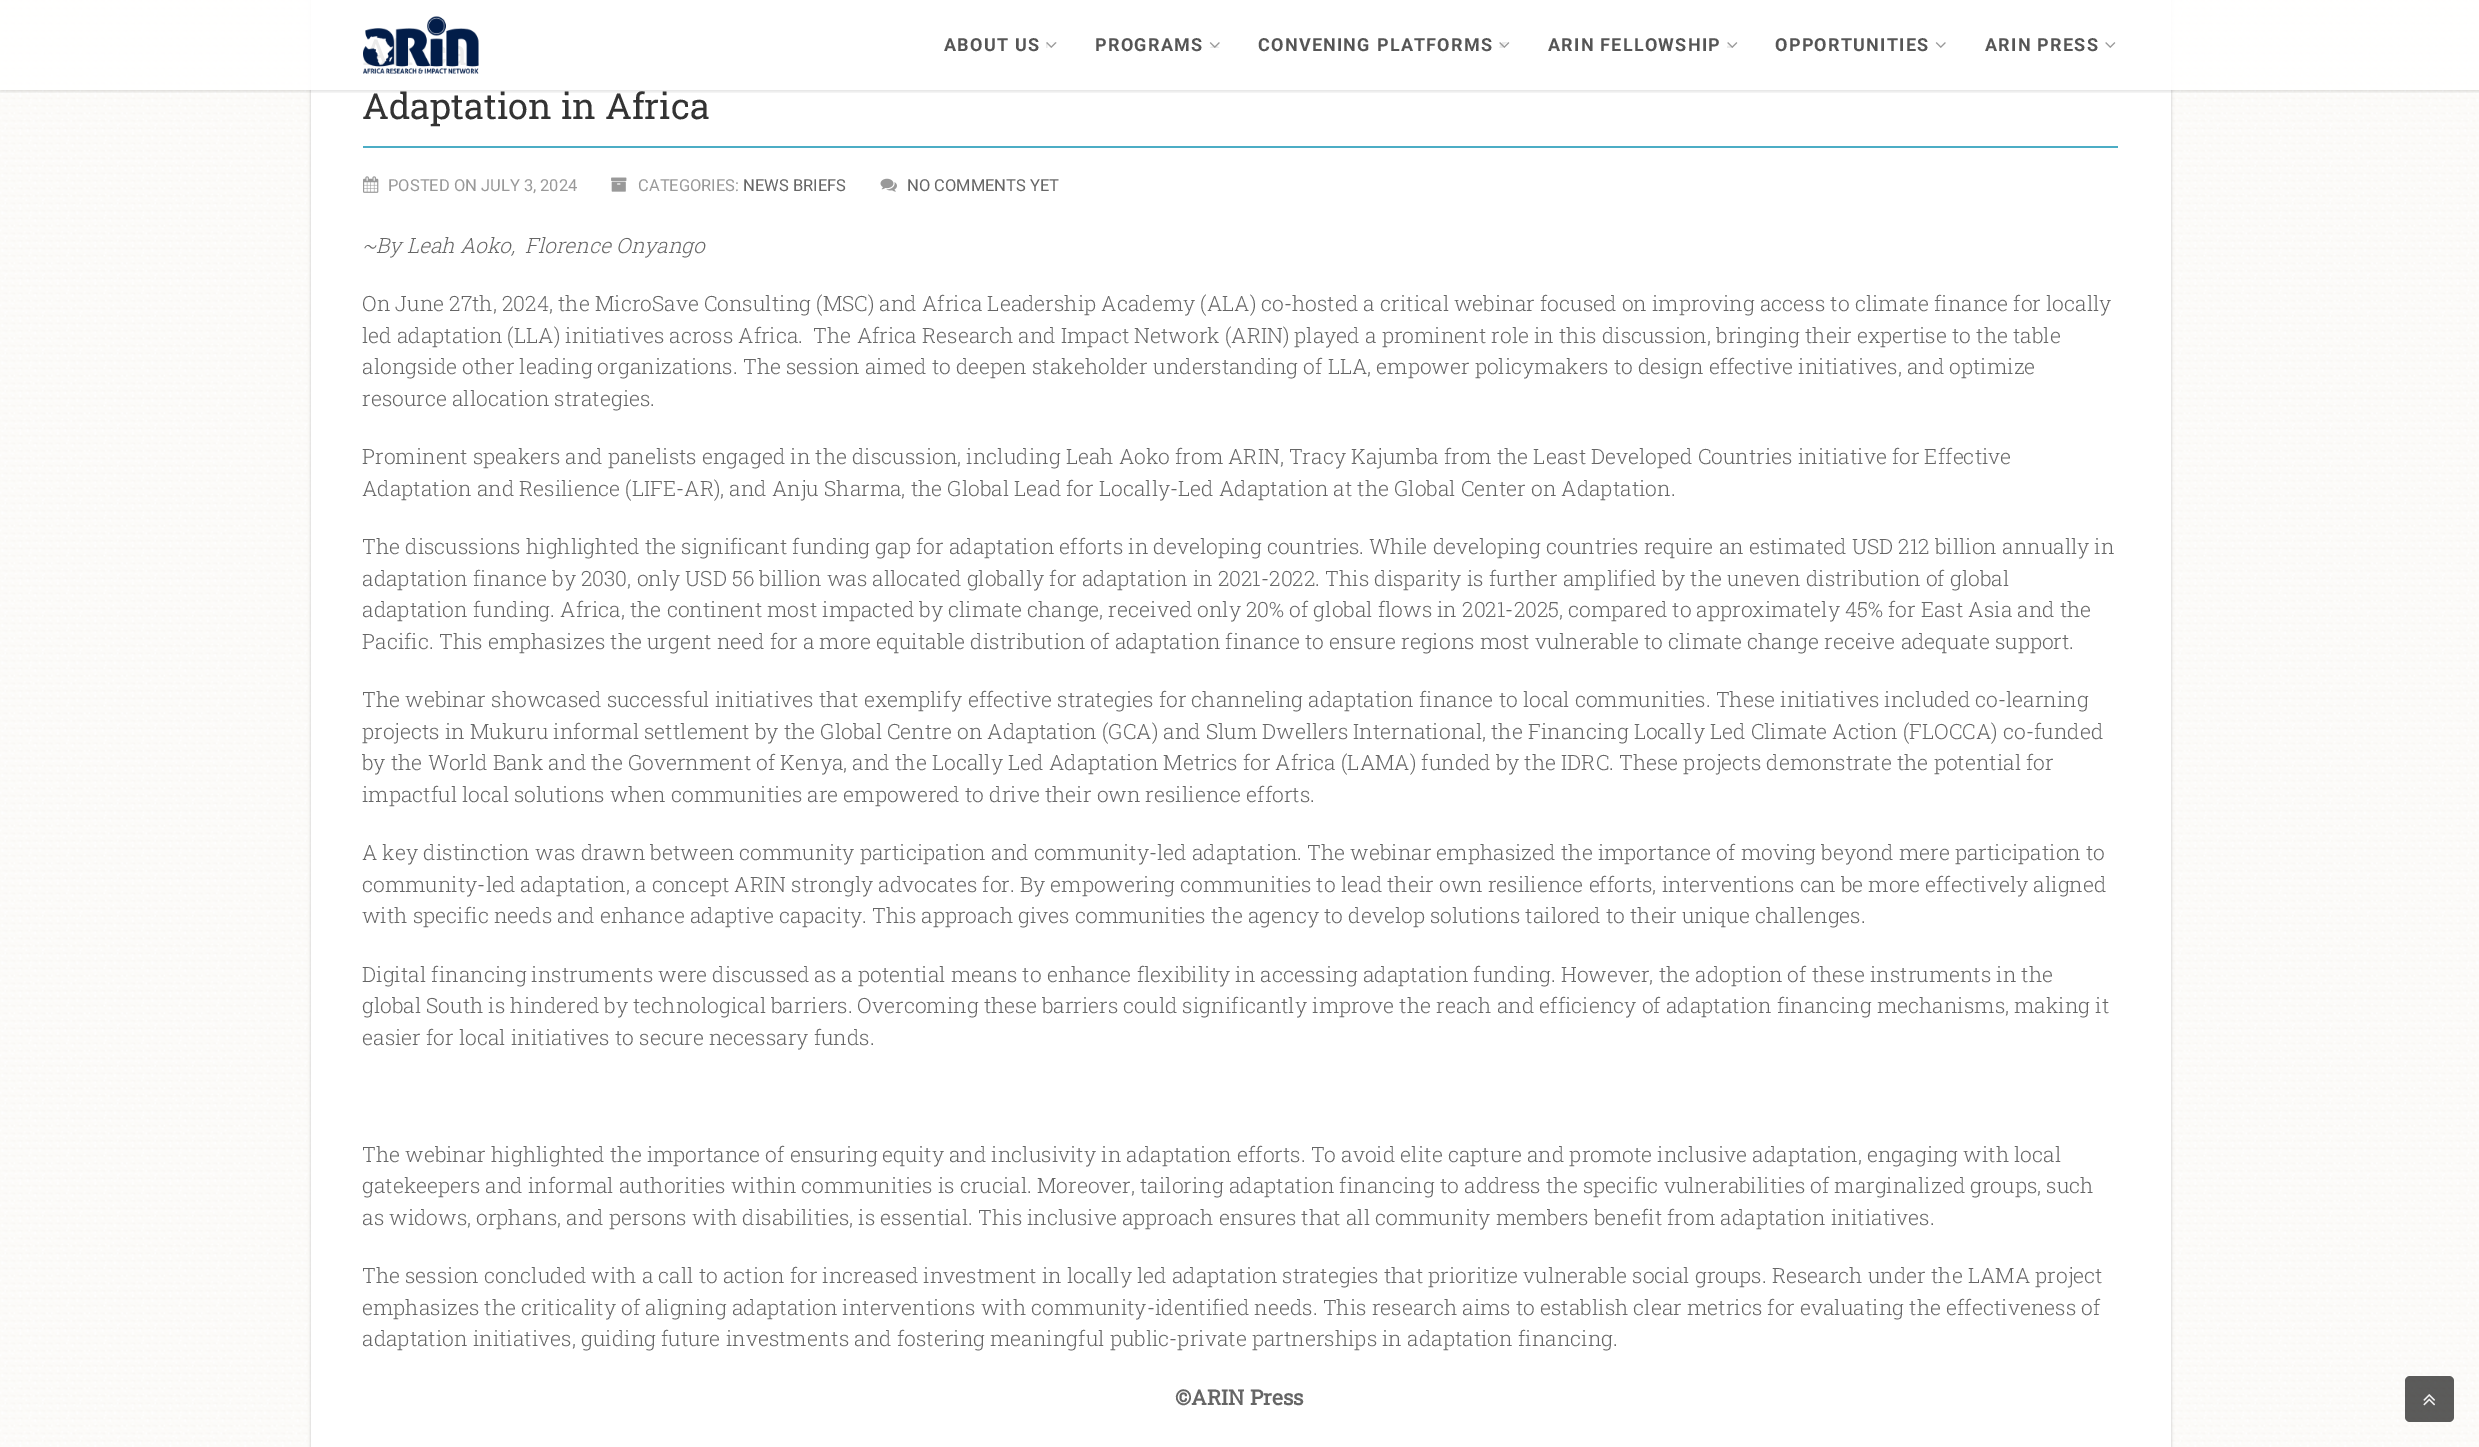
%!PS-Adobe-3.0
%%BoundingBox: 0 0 2479 1447
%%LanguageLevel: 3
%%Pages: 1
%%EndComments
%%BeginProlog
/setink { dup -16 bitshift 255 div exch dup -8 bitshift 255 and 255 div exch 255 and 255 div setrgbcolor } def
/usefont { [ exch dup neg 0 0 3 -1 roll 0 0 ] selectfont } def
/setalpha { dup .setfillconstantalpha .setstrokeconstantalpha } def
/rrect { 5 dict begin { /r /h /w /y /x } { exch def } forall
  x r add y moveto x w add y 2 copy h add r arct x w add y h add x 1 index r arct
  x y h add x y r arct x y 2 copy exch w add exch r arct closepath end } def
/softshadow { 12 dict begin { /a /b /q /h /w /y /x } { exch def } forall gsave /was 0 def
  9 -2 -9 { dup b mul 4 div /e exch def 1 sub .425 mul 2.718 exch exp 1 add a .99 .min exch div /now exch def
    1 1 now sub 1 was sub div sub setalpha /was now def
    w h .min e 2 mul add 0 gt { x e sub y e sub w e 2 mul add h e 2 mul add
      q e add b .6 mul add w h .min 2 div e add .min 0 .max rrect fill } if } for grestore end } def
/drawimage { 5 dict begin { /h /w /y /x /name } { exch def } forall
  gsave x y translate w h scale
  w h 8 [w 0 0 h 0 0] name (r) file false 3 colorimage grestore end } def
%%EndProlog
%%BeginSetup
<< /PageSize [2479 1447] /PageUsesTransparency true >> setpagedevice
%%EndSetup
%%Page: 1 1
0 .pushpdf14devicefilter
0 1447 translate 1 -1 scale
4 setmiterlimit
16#FFFFFF setink
0 0 2479 1447 rectfill
(img1.raw) 0 0 2479 1447 drawimage
16#000000 setink
311 -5 1860 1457 0 1.5 0.2 softshadow
16#FFFFFF setink
311 0 1860 1447 rectfill
gsave
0 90 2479 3 rectclip
16#000000 setink
0 2 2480 90 0 1.5 0.1 softshadow
grestore
0.9 setalpha
0 0 2479 90 rectfill
1 setalpha
(img2.raw) 363 16 116 58 drawimage
/Roboto-Bold 18 usefont
16#555555 setink
944 51 moveto 1.25 0 (ABOUT US) ashow
(img3.raw) 1046 42 11 6 drawimage
1095 51 moveto 1.25 0 (PROGRAMS) ashow
(img4.raw) 1209 42 11 6 drawimage
1258 51 moveto 1.25 0 (CONVENING PLATFORMS) ashow
(img5.raw) 1499 42 11 6 drawimage
1548 51 moveto 1.25 0 (ARIN FELLOWSHIP) ashow
(img6.raw) 1727 42 11 6 drawimage
1775 51 moveto 1.25 0 (OPPORTUNITIES) ashow
(img7.raw) 1935 42 11 6 drawimage
1985 51 moveto 1.25 0 (ARIN PRESS) ashow
(img8.raw) 2105 42 11 6 drawimage
16#4CADC5 setink
363 146 1755 2 rectfill
/RobotoSlab-Regular 36 usefont
16#333333 setink
362 119 moveto (Adaptation in Africa) show
(img9.raw) 363 176 16 17 drawimage
/Roboto-Regular 16.5 usefont
16#999999 setink
388 191 moveto (POSTED ON JULY 3, 2024) show
(img10.raw) 611 177 16 15 drawimage
638 191 moveto (CATEGORIES:) show
16#666666 setink
743 191 moveto (NEWS BRIEFS) show
(img11.raw) 880 178 17 14 drawimage
907 191 moveto (NO COMMENTS YET) show
/RobotoSlab-LightItalic 21 usefont
362 253 moveto (~By Leah Aoko,  Florence Onyango) show
/RobotoSlab-Light 21 usefont
[
    [(On June 27th, 2024, the MicroSave Consulting \(MSC\) and Africa Leadership Academy \(ALA\) co-hosted a critical webinar focused on improving access to climate finance for locally) 362 311]
    [(led adaptation \(LLA\) initiatives across Africa.  The Africa Research and Impact Network \(ARIN\) played a prominent role in this discussion, bringing their expertise to the table) 362 343]
    [(alongside other leading organizations. The session aimed to deepen stakeholder understanding of LLA, empower policymakers to design effective initiatives, and optimize) 362 374]
    [(resource allocation strategies.) 362 406]
    [(Prominent speakers and panelists engaged in the discussion, including Leah Aoko from ARIN, Tracy Kajumba from the Least Developed Countries initiative for Effective) 362 464]
    [(Adaptation and Resilience \(LIFE-AR\), and Anju Sharma, the Global Lead for Locally-Led Adaptation at the Global Center on Adaptation.) 362 496]
    [(The discussions highlighted the significant funding gap for adaptation efforts in developing countries. While developing countries require an estimated USD 212 billion annually in) 362 554]
    [(adaptation finance by 2030, only USD 56 billion was allocated globally for adaptation in 2021-2022. This disparity is further amplified by the uneven distribution of global) 362 586]
    [(adaptation funding. Africa, the continent most impacted by climate change, received only 20% of global flows in 2021-2025, compared to approximately 45% for East Asia and the) 362 617]
    [(Pacific. This emphasizes the urgent need for a more equitable distribution of adaptation finance to ensure regions most vulnerable to climate change receive adequate support.) 362 649]
    [(The webinar showcased successful initiatives that exemplify effective strategies for channeling adaptation finance to local communities. These initiatives included co-learning) 362 707]
    [(projects in Mukuru informal settlement by the Global Centre on Adaptation \(GCA\) and Slum Dwellers International, the Financing Locally Led Climate Action \(FLOCCA\) co-funded) 362 739]
    [(by the World Bank and the Government of Kenya, and the Locally Led Adaptation Metrics for Africa \(LAMA\) funded by the IDRC. These projects demonstrate the potential for) 362 770]
    [(impactful local solutions when communities are empowered to drive their own resilience efforts.) 362 802]
    [(A key distinction was drawn between community participation and community-led adaptation. The webinar emphasized the importance of moving beyond mere participation to) 362 860]
    [(community-led adaptation, a concept ARIN strongly advocates for. By empowering communities to lead their own resilience efforts, interventions can be more effectively aligned) 362 892]
    [(with specific needs and enhance adaptive capacity. This approach gives communities the agency to develop solutions tailored to their unique challenges.) 362 923]
    [(Digital financing instruments were discussed as a potential means to enhance flexibility in accessing adaptation funding. However, the adoption of these instruments in the) 362 982]
    [(global South is hindered by technological barriers. Overcoming these barriers could significantly improve the reach and efficiency of adaptation financing mechanisms, making it) 362 1013]
    [(easier for local initiatives to secure necessary funds.) 362 1045]
    [(The webinar highlighted the importance of ensuring equity and inclusivity in adaptation efforts. To avoid elite capture and promote inclusive adaptation, engaging with local) 362 1162]
    [(gatekeepers and informal authorities within communities is crucial. Moreover, tailoring adaptation financing to address the specific vulnerabilities of marginalized groups, such) 362 1193]
    [(as widows, orphans, and persons with disabilities, is essential. This inclusive approach ensures that all community members benefit from adaptation initiatives.) 362 1225]
    [(The session concluded with a call to action for increased investment in locally led adaptation strategies that prioritize vulnerable social groups. Research under the LAMA project) 362 1283]
    [(emphasizes the criticality of aligning adaptation interventions with community-identified needs. This research aims to establish clear metrics for evaluating the effectiveness of) 362 1315]
    [(adaptation initiatives, guiding future investments and fostering meaningful public-private partnerships in adaptation financing.) 362 1346]
] { aload pop moveto show } forall
/RobotoSlab-Bold 21 usefont
1175 1405 moveto (©ARIN Press) show
0.64 setalpha
16#000000 setink
2405 1376 49 46 5 rrect fill
1 setalpha
(img12.raw) 2423 1394 12 12 drawimage
.poppdf14devicefilter showpage
%%EOF
